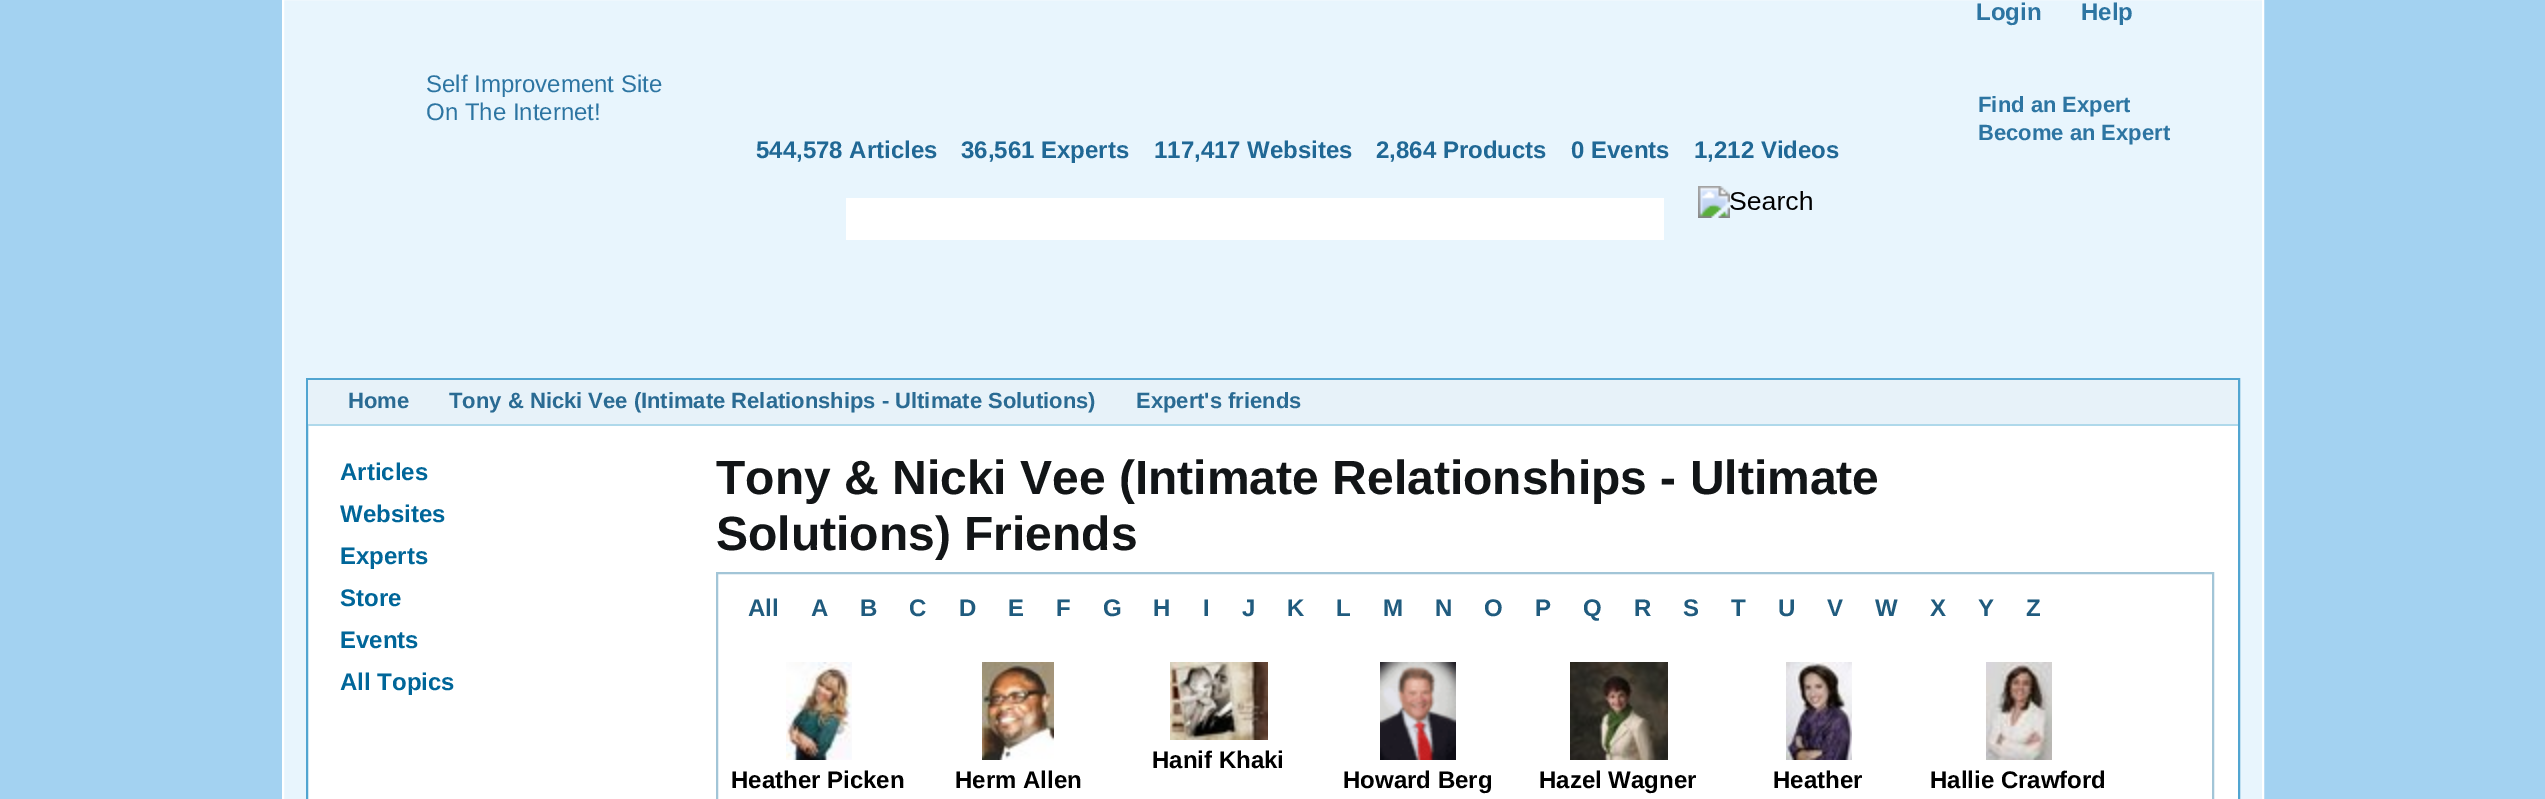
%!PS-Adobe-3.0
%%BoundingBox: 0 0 2545 799
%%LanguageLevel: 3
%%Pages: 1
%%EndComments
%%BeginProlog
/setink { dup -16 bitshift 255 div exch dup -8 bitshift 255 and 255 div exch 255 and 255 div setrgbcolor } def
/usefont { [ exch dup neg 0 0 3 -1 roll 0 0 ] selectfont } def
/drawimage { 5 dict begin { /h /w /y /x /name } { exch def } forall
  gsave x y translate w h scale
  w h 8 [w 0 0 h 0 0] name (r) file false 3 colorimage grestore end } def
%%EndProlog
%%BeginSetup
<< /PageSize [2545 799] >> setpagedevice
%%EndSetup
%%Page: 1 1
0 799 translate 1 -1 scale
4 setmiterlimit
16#A3D2F1 setink
0 0 2545 799 rectfill
16#E8F5FD setink
283 -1 moveto 2263 -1 lineto 2263 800 lineto 283 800 lineto closepath gsave fill grestore
16#FFFFFF setink
2 setlinewidth
stroke
/LiberationSans-Regular 24 usefont
16#2D75A2 setink
426 92 moveto (Self Improvement Site) show
426 120 moveto (On The Internet!) show
/LiberationSans-Bold 24 usefont
1976 20 moveto (Login) show
2081 20 moveto (Help) show
/LiberationSans-Bold 22 usefont
1978 112 moveto (Find an Expert) show
1978 140 moveto (Become an Expert) show
/LiberationSans-Bold 24 usefont
16#206895 setink
[
    [(544,578 Articles) 756 158]
    [(36,561 Experts) 961 158]
    [(117,417 Websites) 1154 158]
    [(2,864 Products) 1376 158]
    [(0 Events) 1571 158]
    [(1,212 Videos) 1694 158]
] { aload pop moveto show } forall
16#FFFFFF setink
846 198 818 42 rectfill
(img1.raw) 1698 186 114 32 drawimage
308 426 1930 373 rectfill
16#51A5D1 setink
307 379 1932 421 rectstroke
16#E7F2F9 setink
308 380 1930 44 rectfill
16#AFD9EB setink
308 424 1930 2 rectfill
/LiberationSans-Bold 22 usefont
16#2A6B93 setink
[
    [(Home) 348 408]
    [(Tony & Nicki Vee \(Intimate Relationships - Ultimate Solutions\)) 449 408]
    [(Expert's friends) 1136 408]
] { aload pop moveto show } forall
/LiberationSans-Bold 24 usefont
16#006699 setink
[
    [(Articles) 340 480]
    [(Websites) 340 522]
    [(Experts) 340 564]
    [(Store) 340 606]
    [(Events) 340 648]
    [(All Topics) 340 690]
] { aload pop moveto show } forall
/LiberationSans-Bold 48 usefont
16#121517 setink
716 494 moveto (Tony & Nicki Vee \(Intimate Relationships - Ultimate) show
716 550 moveto (Solutions\) Friends) show
16#A2C5D7 setink
717 573 1496 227 rectstroke
/LiberationSans-Bold 24 usefont
16#205B7E setink
[
    [(All) 748 616]
    [(A) 811 616]
    [(B) 860 616]
    [(C) 909 616]
    [(D) 959 616]
    [(E) 1008 616]
    [(F) 1056 616]
    [(G) 1103 616]
    [(H) 1153 616]
    [(I) 1203 616]
    [(J) 1242 616]
    [(K) 1287 616]
    [(L) 1336 616]
    [(M) 1383 616]
    [(N) 1435 616]
    [(O) 1484 616]
    [(P) 1535 616]
    [(Q) 1583 616]
    [(R) 1634 616]
    [(S) 1683 616]
    [(T) 1731 616]
    [(U) 1778 616]
    [(V) 1827 616]
    [(W) 1875 616]
    [(X) 1930 616]
    [(Y) 1978 616]
    [(Z) 2026 616]
] { aload pop moveto show } forall
(img2.raw) 1170 662 98 78 drawimage
16#000000 setink
1152 768 moveto (Hanif Khaki) show
(img3.raw) 786 662 66 98 drawimage
731 788 moveto (Heather Picken) show
(img4.raw) 982 662 72 98 drawimage
955 788 moveto (Herm Allen) show
(img5.raw) 1380 662 76 98 drawimage
1343 788 moveto (Howard Berg) show
(img6.raw) 1570 662 98 98 drawimage
1539 788 moveto (Hazel Wagner) show
(img7.raw) 1786 662 66 98 drawimage
1773 788 moveto (Heather) show
(img8.raw) 1986 662 66 98 drawimage
1930 788 moveto (Hallie Crawford) show
showpage
%%EOF
